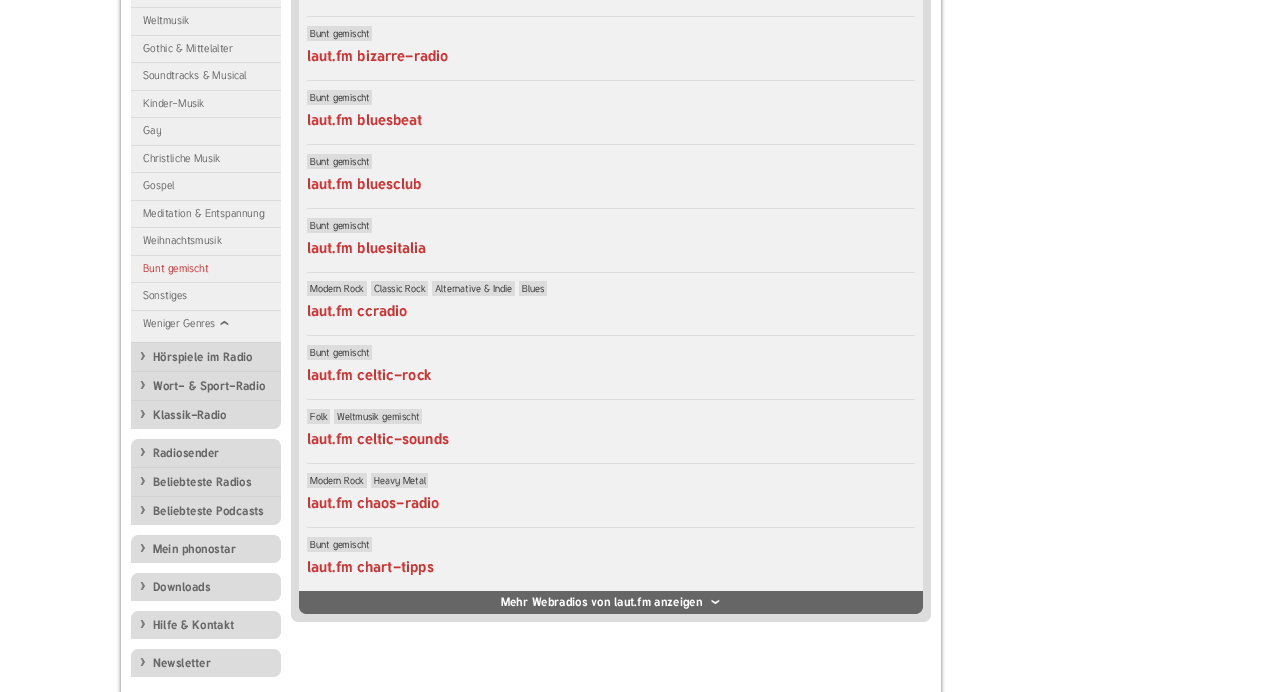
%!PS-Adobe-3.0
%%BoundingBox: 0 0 1261 692
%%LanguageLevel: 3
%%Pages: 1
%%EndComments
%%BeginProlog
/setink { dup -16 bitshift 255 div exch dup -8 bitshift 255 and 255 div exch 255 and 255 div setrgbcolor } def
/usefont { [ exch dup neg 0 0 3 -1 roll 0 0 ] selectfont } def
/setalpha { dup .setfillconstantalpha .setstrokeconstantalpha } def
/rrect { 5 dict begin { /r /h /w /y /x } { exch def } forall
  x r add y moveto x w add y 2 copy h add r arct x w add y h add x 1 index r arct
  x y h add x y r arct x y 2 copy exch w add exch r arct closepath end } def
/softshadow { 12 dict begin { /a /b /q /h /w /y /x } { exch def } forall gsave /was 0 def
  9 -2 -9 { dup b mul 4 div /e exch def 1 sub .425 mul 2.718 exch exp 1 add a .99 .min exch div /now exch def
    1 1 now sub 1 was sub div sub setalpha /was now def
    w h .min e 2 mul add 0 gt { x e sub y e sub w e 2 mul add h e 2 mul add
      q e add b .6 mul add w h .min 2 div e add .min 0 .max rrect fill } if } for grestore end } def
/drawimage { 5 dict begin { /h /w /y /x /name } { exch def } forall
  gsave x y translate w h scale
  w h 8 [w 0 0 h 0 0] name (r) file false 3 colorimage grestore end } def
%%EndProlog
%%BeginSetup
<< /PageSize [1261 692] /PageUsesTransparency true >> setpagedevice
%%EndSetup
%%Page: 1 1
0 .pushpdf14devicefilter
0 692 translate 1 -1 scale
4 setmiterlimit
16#FFFFFF setink
0 0 1261 692 rectfill
gsave
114 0 moveto 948 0 lineto 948 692 lineto 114 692 lineto closepath 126 -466 moveto 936 -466 lineto 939 -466 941 -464 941 -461 curveto 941 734 lineto 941 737 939 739 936 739 curveto 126 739 lineto 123 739 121 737 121 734 curveto 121 -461 lineto 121 -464 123 -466 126 -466 curveto closepath eoclip newpath
16#666666 setink
121 -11 820 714 5 2 1 softshadow
grestore
16#DCDCDC setink
139 -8 moveto 273 -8 lineto 277.5 -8 281 -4.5 281 0 curveto 281 421 lineto 281 425.5 277.5 429 273 429 curveto 131 429 lineto 131 0 lineto 131 -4.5 134.5 -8 139 -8 curveto closepath fill
[
    [131 342 150 1 16#D3D3D3]
    [131 0 150 342 16#EFEFEF]
    [131 7 150 1 16#DCDCDC]
    [131 35 150 1 16#DCDCDC]
] { aload pop setink rectfill } forall
/Tuffy-Regular 11 usefont
16#666666 setink
143 24 moveto (Weltmusik) show
16#DCDCDC setink
131 62 150 1 rectfill
16#666666 setink
143 52 moveto (Gothic & Mittelalter) show
16#DCDCDC setink
131 90 150 1 rectfill
16#666666 setink
143 79 moveto (Soundtracks & Musical) show
16#DCDCDC setink
131 117 150 1 rectfill
16#666666 setink
143 107 moveto (Kinder-Musik) show
16#DCDCDC setink
131 145 150 1 rectfill
16#666666 setink
143 134 moveto (Gay) show
16#DCDCDC setink
131 172 150 1 rectfill
16#666666 setink
143 162 moveto (Christliche Musik) show
16#DCDCDC setink
131 200 150 1 rectfill
16#666666 setink
143 189 moveto (Gospel) show
16#DCDCDC setink
131 227 150 1 rectfill
16#666666 setink
143 217 moveto (Meditation & Entspannung) show
16#DCDCDC setink
131 255 150 1 rectfill
16#666666 setink
143 244 moveto (Weihnachtsmusik) show
16#DCDCDC setink
131 282 150 1 rectfill
16#CC3333 setink
143 272 moveto (Bunt gemischt) show
16#DCDCDC setink
131 310 150 1 rectfill
16#666666 setink
143 299 moveto (Sonstiges) show
143 327 moveto (Weniger Genres) show
(img1.raw) 220 320 9 6 drawimage
16#D3D3D3 setink
131 371 150 1 rectfill
(img2.raw) 140 352 5 8 drawimage
/Tuffy-Bold 12 usefont
16#666666 setink
153 361 moveto (Hörspiele im Radio) show
16#D3D3D3 setink
131 400 150 1 rectfill
(img2.raw) 140 381 5 8 drawimage
16#666666 setink
153 390 moveto (Wort- & Sport-Radio) show
(img2.raw) 140 410 5 8 drawimage
153 419 moveto (Klassik-Radio) show
16#DCDCDC setink
139 439 moveto 273 439 lineto 277.5 439 281 442.5 281 447 curveto 281 517 lineto 281 521.5 277.5 525 273 525 curveto 131 525 lineto 131 447 lineto 131 442.5 134.5 439 139 439 curveto closepath fill
16#D3D3D3 setink
131 467 150 1 rectfill
(img2.raw) 140 448 5 8 drawimage
16#666666 setink
153 457 moveto (Radiosender) show
16#D3D3D3 setink
131 496 150 1 rectfill
(img2.raw) 140 477 5 8 drawimage
16#666666 setink
153 486 moveto (Beliebteste Radios) show
(img2.raw) 140 506 5 8 drawimage
153 515 moveto (Beliebteste Podcasts) show
16#DCDCDC setink
139 535 moveto 273 535 lineto 277.5 535 281 538.5 281 543 curveto 281 555 lineto 281 559.5 277.5 563 273 563 curveto 131 563 lineto 131 543 lineto 131 538.5 134.5 535 139 535 curveto closepath fill
(img2.raw) 140 544 5 8 drawimage
16#666666 setink
153 553 moveto (Mein phonostar) show
16#DCDCDC setink
139 573 moveto 273 573 lineto 277.5 573 281 576.5 281 581 curveto 281 593 lineto 281 597.5 277.5 601 273 601 curveto 131 601 lineto 131 581 lineto 131 576.5 134.5 573 139 573 curveto closepath fill
(img2.raw) 140 582 5 8 drawimage
16#666666 setink
153 591 moveto (Downloads) show
16#DCDCDC setink
139 611 moveto 273 611 lineto 277.5 611 281 614.5 281 619 curveto 281 631 lineto 281 635.5 277.5 639 273 639 curveto 131 639 lineto 131 619 lineto 131 614.5 134.5 611 139 611 curveto closepath fill
(img2.raw) 140 620 5 8 drawimage
16#666666 setink
153 629 moveto (Hilfe & Kontakt) show
16#DCDCDC setink
139 649 moveto 273 649 lineto 277.5 649 281 652.5 281 657 curveto 281 669 lineto 281 673.5 277.5 677 273 677 curveto 131 677 lineto 131 657 lineto 131 652.5 134.5 649 139 649 curveto closepath fill
(img2.raw) 140 658 5 8 drawimage
16#666666 setink
153 667 moveto (Newsletter) show
16#DCDCDC setink
291 -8 640 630 8 rrect fill
[
    [299 0 624 591 16#F1F1F1]
    [307 16 608 1 16#DCDCDC]
    [307 80 608 1 16#DCDCDC]
    [307 26 65 15 16#DCDCDC]
] { aload pop setink rectfill } forall
/Tuffy-Regular 10 usefont
16#333333 setink
310 37 moveto (Bunt gemischt) show
/Tuffy-Bold 15 usefont
16#CC3333 setink
307 61 moveto (laut.fm bizarre-radio) show
16#DCDCDC setink
307 144 608 1 rectfill
307 90 65 15 rectfill
/Tuffy-Regular 10 usefont
16#333333 setink
310 101 moveto (Bunt gemischt) show
/Tuffy-Bold 15 usefont
16#CC3333 setink
307 125 moveto (laut.fm bluesbeat) show
16#DCDCDC setink
307 208 608 1 rectfill
307 154 65 15 rectfill
/Tuffy-Regular 10 usefont
16#333333 setink
310 165 moveto (Bunt gemischt) show
/Tuffy-Bold 15 usefont
16#CC3333 setink
307 189 moveto (laut.fm bluesclub) show
16#DCDCDC setink
307 272 608 1 rectfill
307 218 65 15 rectfill
/Tuffy-Regular 10 usefont
16#333333 setink
310 229 moveto (Bunt gemischt) show
/Tuffy-Bold 15 usefont
16#CC3333 setink
307 253 moveto (laut.fm bluesitalia) show
16#DCDCDC setink
307 335 608 1 rectfill
307 281 60 15 rectfill
/Tuffy-Regular 10 usefont
16#333333 setink
310 292 moveto (Modern Rock) show
16#DCDCDC setink
371 281 57 15 rectfill
16#333333 setink
374 292 moveto (Classic Rock) show
16#DCDCDC setink
432 281 83 15 rectfill
16#333333 setink
435 292 moveto (Alternative & Indie) show
16#DCDCDC setink
519 281 28 15 rectfill
16#333333 setink
522 292 moveto (Blues) show
/Tuffy-Bold 15 usefont
16#CC3333 setink
307 316 moveto (laut.fm ccradio) show
16#DCDCDC setink
307 399 608 1 rectfill
307 345 65 15 rectfill
/Tuffy-Regular 10 usefont
16#333333 setink
310 356 moveto (Bunt gemischt) show
/Tuffy-Bold 15 usefont
16#CC3333 setink
307 380 moveto (laut.fm celtic-rock) show
16#DCDCDC setink
307 463 608 1 rectfill
307 409 23 15 rectfill
/Tuffy-Regular 10 usefont
16#333333 setink
310 420 moveto (Folk) show
16#DCDCDC setink
334 409 88 15 rectfill
16#333333 setink
337 420 moveto (Weltmusik gemischt) show
/Tuffy-Bold 15 usefont
16#CC3333 setink
307 444 moveto (laut.fm celtic-sounds) show
16#DCDCDC setink
307 527 608 1 rectfill
307 473 60 15 rectfill
/Tuffy-Regular 10 usefont
16#333333 setink
310 484 moveto (Modern Rock) show
16#DCDCDC setink
371 473 57 15 rectfill
16#333333 setink
374 484 moveto (Heavy Metal) show
/Tuffy-Bold 15 usefont
16#CC3333 setink
307 508 moveto (laut.fm chaos-radio) show
16#DCDCDC setink
307 537 65 15 rectfill
/Tuffy-Regular 10 usefont
16#333333 setink
310 548 moveto (Bunt gemischt) show
/Tuffy-Bold 15 usefont
16#CC3333 setink
307 572 moveto (laut.fm chart-tipps) show
16#666666 setink
299 591 moveto 923 591 lineto 923 606 lineto 923 610.5 919.5 614 915 614 curveto 307 614 lineto 302.5 614 299 610.5 299 606 curveto closepath fill
/Tuffy-Bold 12 usefont
16#FFFFFF setink
501 606 moveto (Mehr Webradios von laut.fm anzeigen) show
(img3.raw) 711 599 9 6 drawimage
.poppdf14devicefilter showpage
%%EOF
